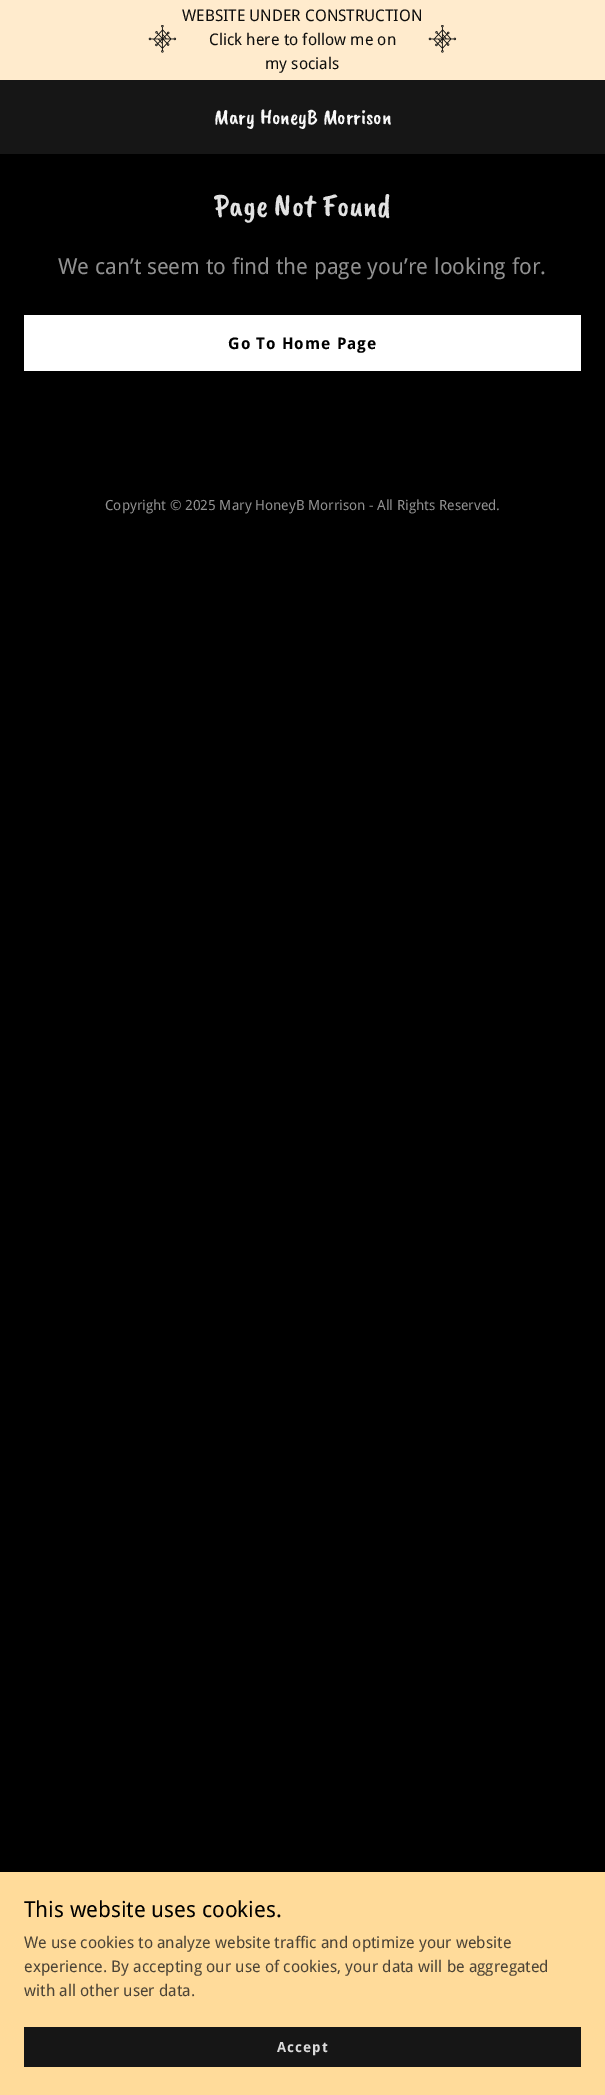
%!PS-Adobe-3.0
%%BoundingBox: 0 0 605 2095
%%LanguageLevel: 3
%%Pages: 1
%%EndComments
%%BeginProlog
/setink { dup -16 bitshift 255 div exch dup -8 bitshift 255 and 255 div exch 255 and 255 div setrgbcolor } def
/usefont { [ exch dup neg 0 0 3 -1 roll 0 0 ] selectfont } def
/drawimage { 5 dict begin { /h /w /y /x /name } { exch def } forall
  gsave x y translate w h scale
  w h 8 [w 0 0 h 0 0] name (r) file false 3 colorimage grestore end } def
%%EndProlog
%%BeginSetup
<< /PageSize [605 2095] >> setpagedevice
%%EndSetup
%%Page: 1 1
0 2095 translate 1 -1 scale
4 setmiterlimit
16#000000 setink
0 0 605 2095 rectfill
16#161616 setink
0 80 605 74 rectfill
16#FFEBCD setink
0 0 605 80 rectfill
(img1.raw) 148 25 29 28 drawimage
/DroidSans-Regular 16 usefont
16#0E0E0D setink
[
    [(WEBSITE UNDER CONSTRUCTION) 182 21]
    [(Click here to follow me on) 209 45]
    [(my socials) 265 69]
] { aload pop moveto show } forall
(img1.raw) 428 25 29 28 drawimage
/CaveatBrush-Regular 22 usefont
16#F7F7F7 setink
214 124 moveto (Mary HoneyB Morrison) show
/CaveatBrush-Regular 32 usefont
16#E2E2E2 setink
214 216 moveto (Page Not Found) show
/DroidSans-Regular 22 usefont
16#919191 setink
58 274 moveto (We can’t seem to find the page you’re looking for.) show
16#FFFFFF setink
24 315 557 56 rectfill
/DroidSans-Bold 16 usefont
16#000000 setink
228 349 moveto 1 0 (Go To Home Page) ashow
/DroidSans-Regular 14 usefont
16#919191 setink
105 510 moveto (Copyright © 2025 Mary HoneyB Morrison - All Rights Reserved.) show
16#FFDB9A setink
0 1872 605 223 rectfill
/DroidSans-Regular 22 usefont
16#000000 setink
24 1917 moveto (This website uses cookies.) show
/DroidSans-Regular 16 usefont
16#4B4336 setink
[
    [(We use cookies to analyze website traffic and optimize your website) 24 1948]
    [(experience. By accepting our use of cookies, your data will be aggregated) 24 1972]
    [(with all other user data.) 24 1996]
] { aload pop moveto show } forall
16#161616 setink
24 2027 557 40 rectfill
/DroidSans-Bold 14 usefont
16#DBDBDB setink
277 2052 moveto 1 0 (Accept) ashow
showpage
%%EOF
